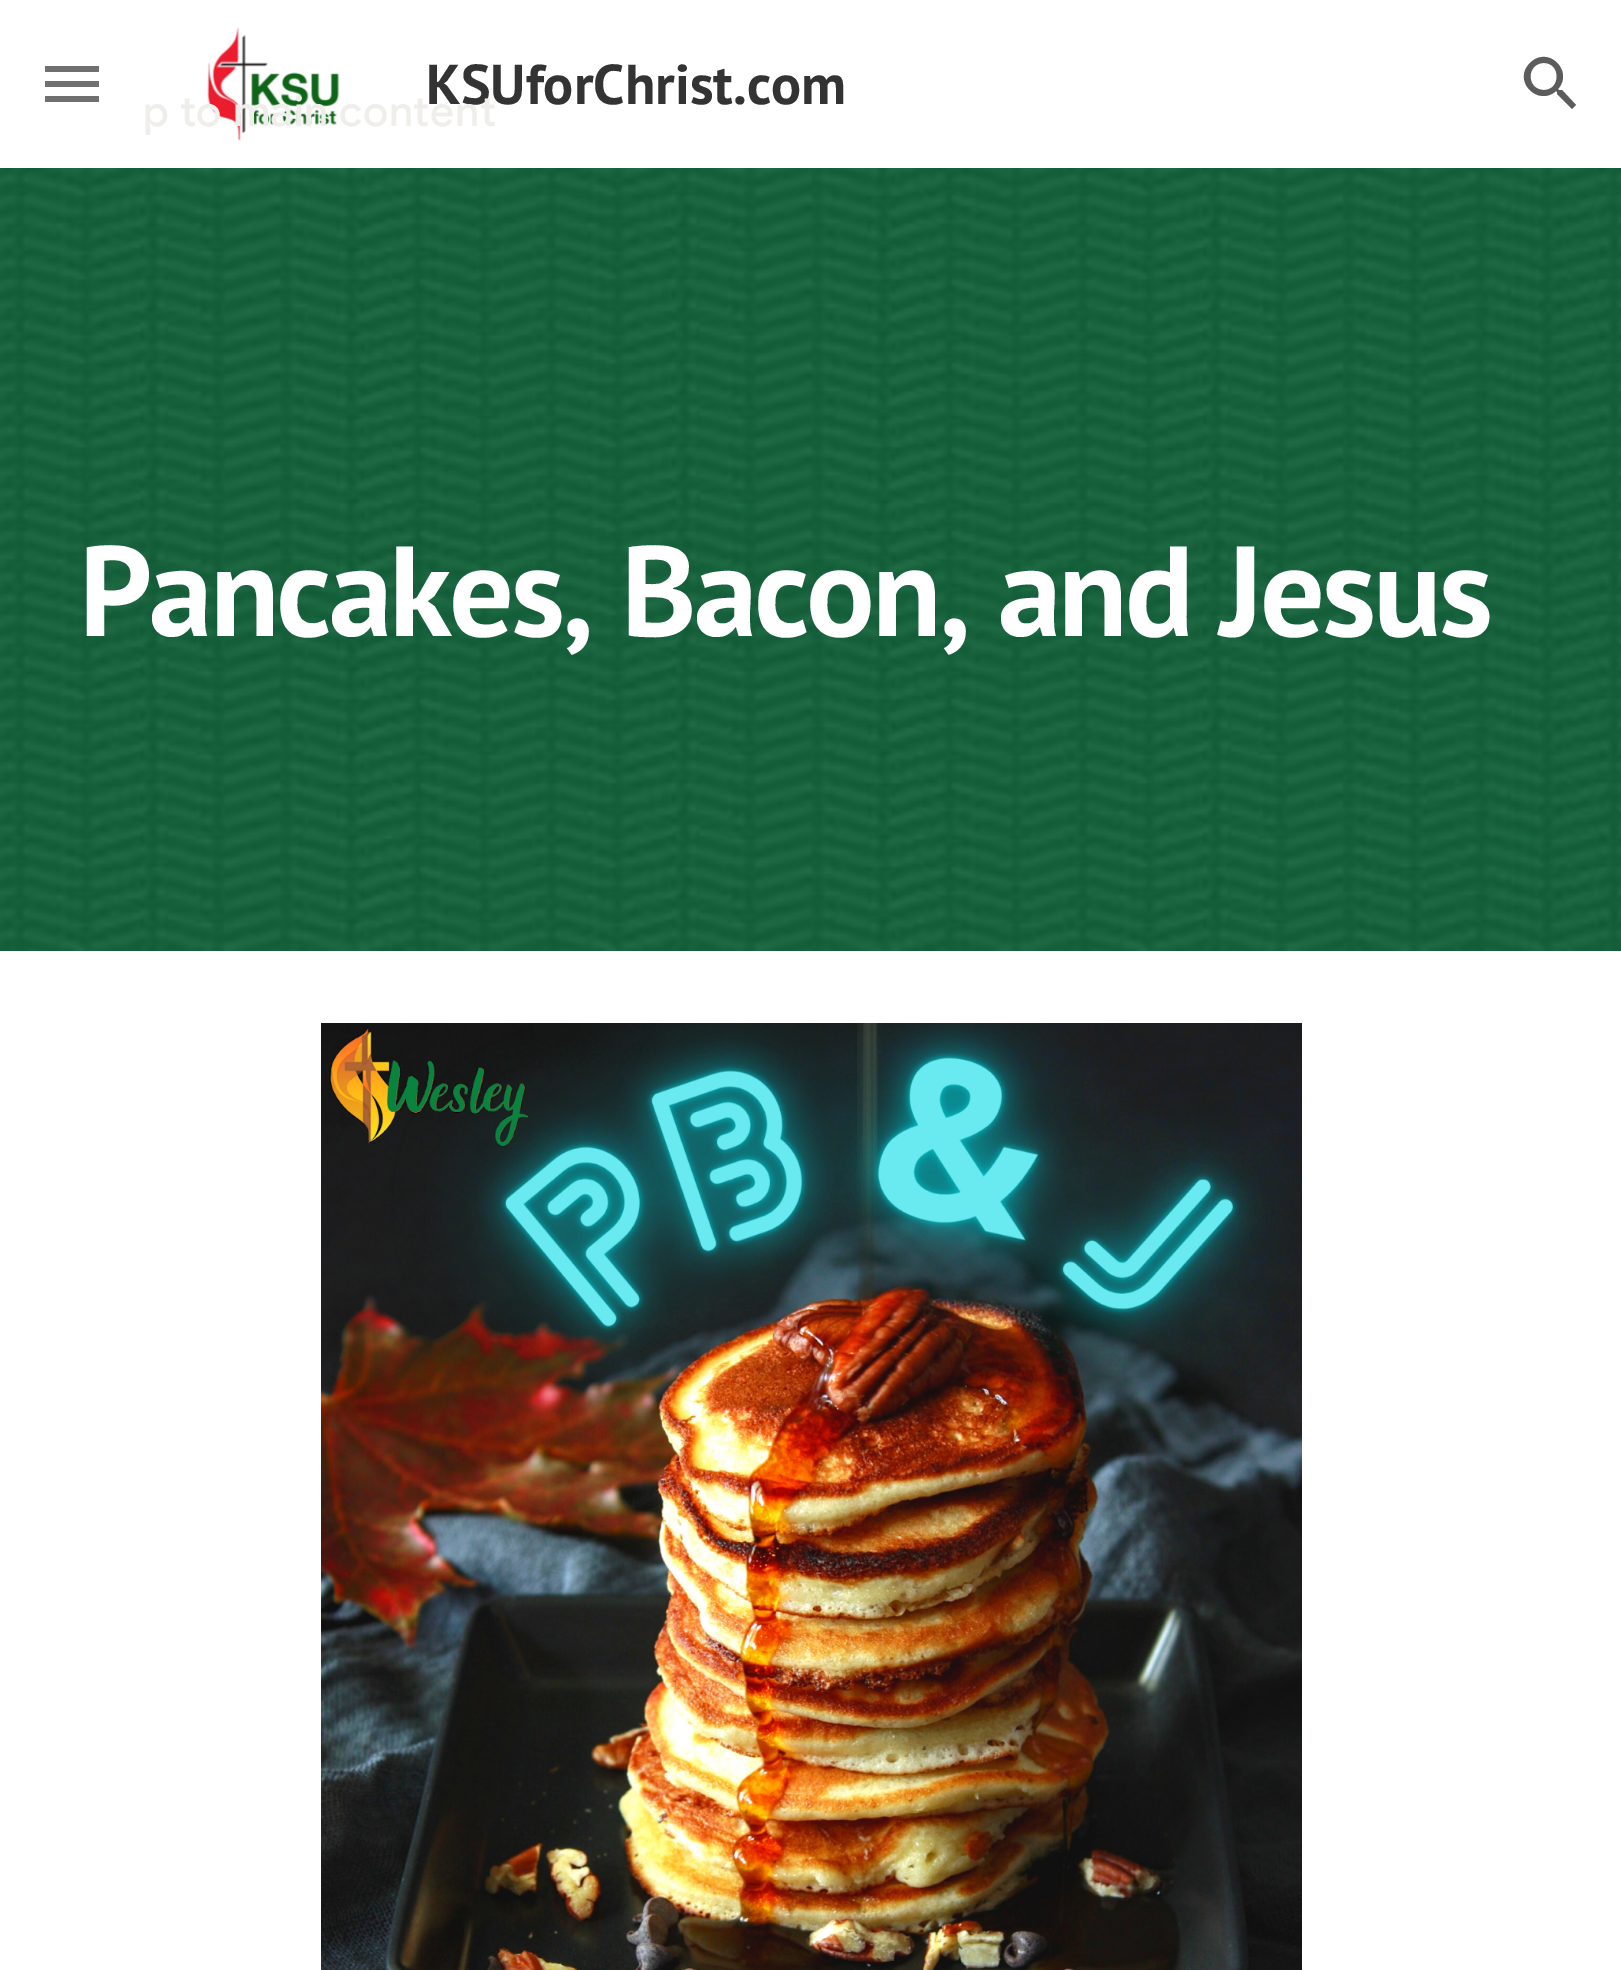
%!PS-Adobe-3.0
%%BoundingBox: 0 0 1621 1970
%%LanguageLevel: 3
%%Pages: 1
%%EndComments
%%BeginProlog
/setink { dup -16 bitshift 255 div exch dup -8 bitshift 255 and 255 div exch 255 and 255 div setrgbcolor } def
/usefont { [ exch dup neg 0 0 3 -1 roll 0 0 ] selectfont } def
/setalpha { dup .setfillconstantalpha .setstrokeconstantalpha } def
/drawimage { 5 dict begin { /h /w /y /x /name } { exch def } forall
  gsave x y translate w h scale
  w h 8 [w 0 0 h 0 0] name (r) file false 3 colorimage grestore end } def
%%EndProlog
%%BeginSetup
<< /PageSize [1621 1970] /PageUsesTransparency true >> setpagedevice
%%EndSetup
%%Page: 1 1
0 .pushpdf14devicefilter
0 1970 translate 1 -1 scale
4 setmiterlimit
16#FFFFFF setink
0 0 1621 1970 rectfill
[
    [45 66 54 6 16#5C5C5C]
    [45 81 54 6 16#5C5C5C]
    [45 96 54 6 16#5C5C5C]
] { aload pop setink rectfill } forall
0.12 setalpha
[
    [45 66 54 36 16#FFFFFF]
] { aload pop setink rectfill } forall
1 setalpha
(img1.raw) 207 27 133 114 drawimage
/PTSans-Bold 56 usefont
16#333333 setink
426 104 moveto (KSUforChrist.com) show
16#5C5C5C setink
1562 90 moveto 1559 90 lineto 1558 89 lineto 1574 71 1548 45 1530 63 curveto 1512 81 1538 107 1556 91 curveto 1557 92 lineto 1557 94 lineto 1572 109 lineto 1576 105 lineto closepath 1544 90 moveto 1526 90 1526 63 1544 63 curveto 1561 63 1561 90 1544 90 curveto closepath fill
(img2.raw) 0 168 1621 783 drawimage
/PTSans-Bold 128 usefont
16#FFFFFF setink
79 636 moveto -3 0 (Pancakes, Bacon, and Jesus) ashow
(img3.raw) 321 1023 981 947 drawimage
/GoogleSans-Medium 42 usefont
16#F0EEEB setink
143 126 moveto 0.5 0 (p to main content) ashow
.poppdf14devicefilter showpage
%%EOF
